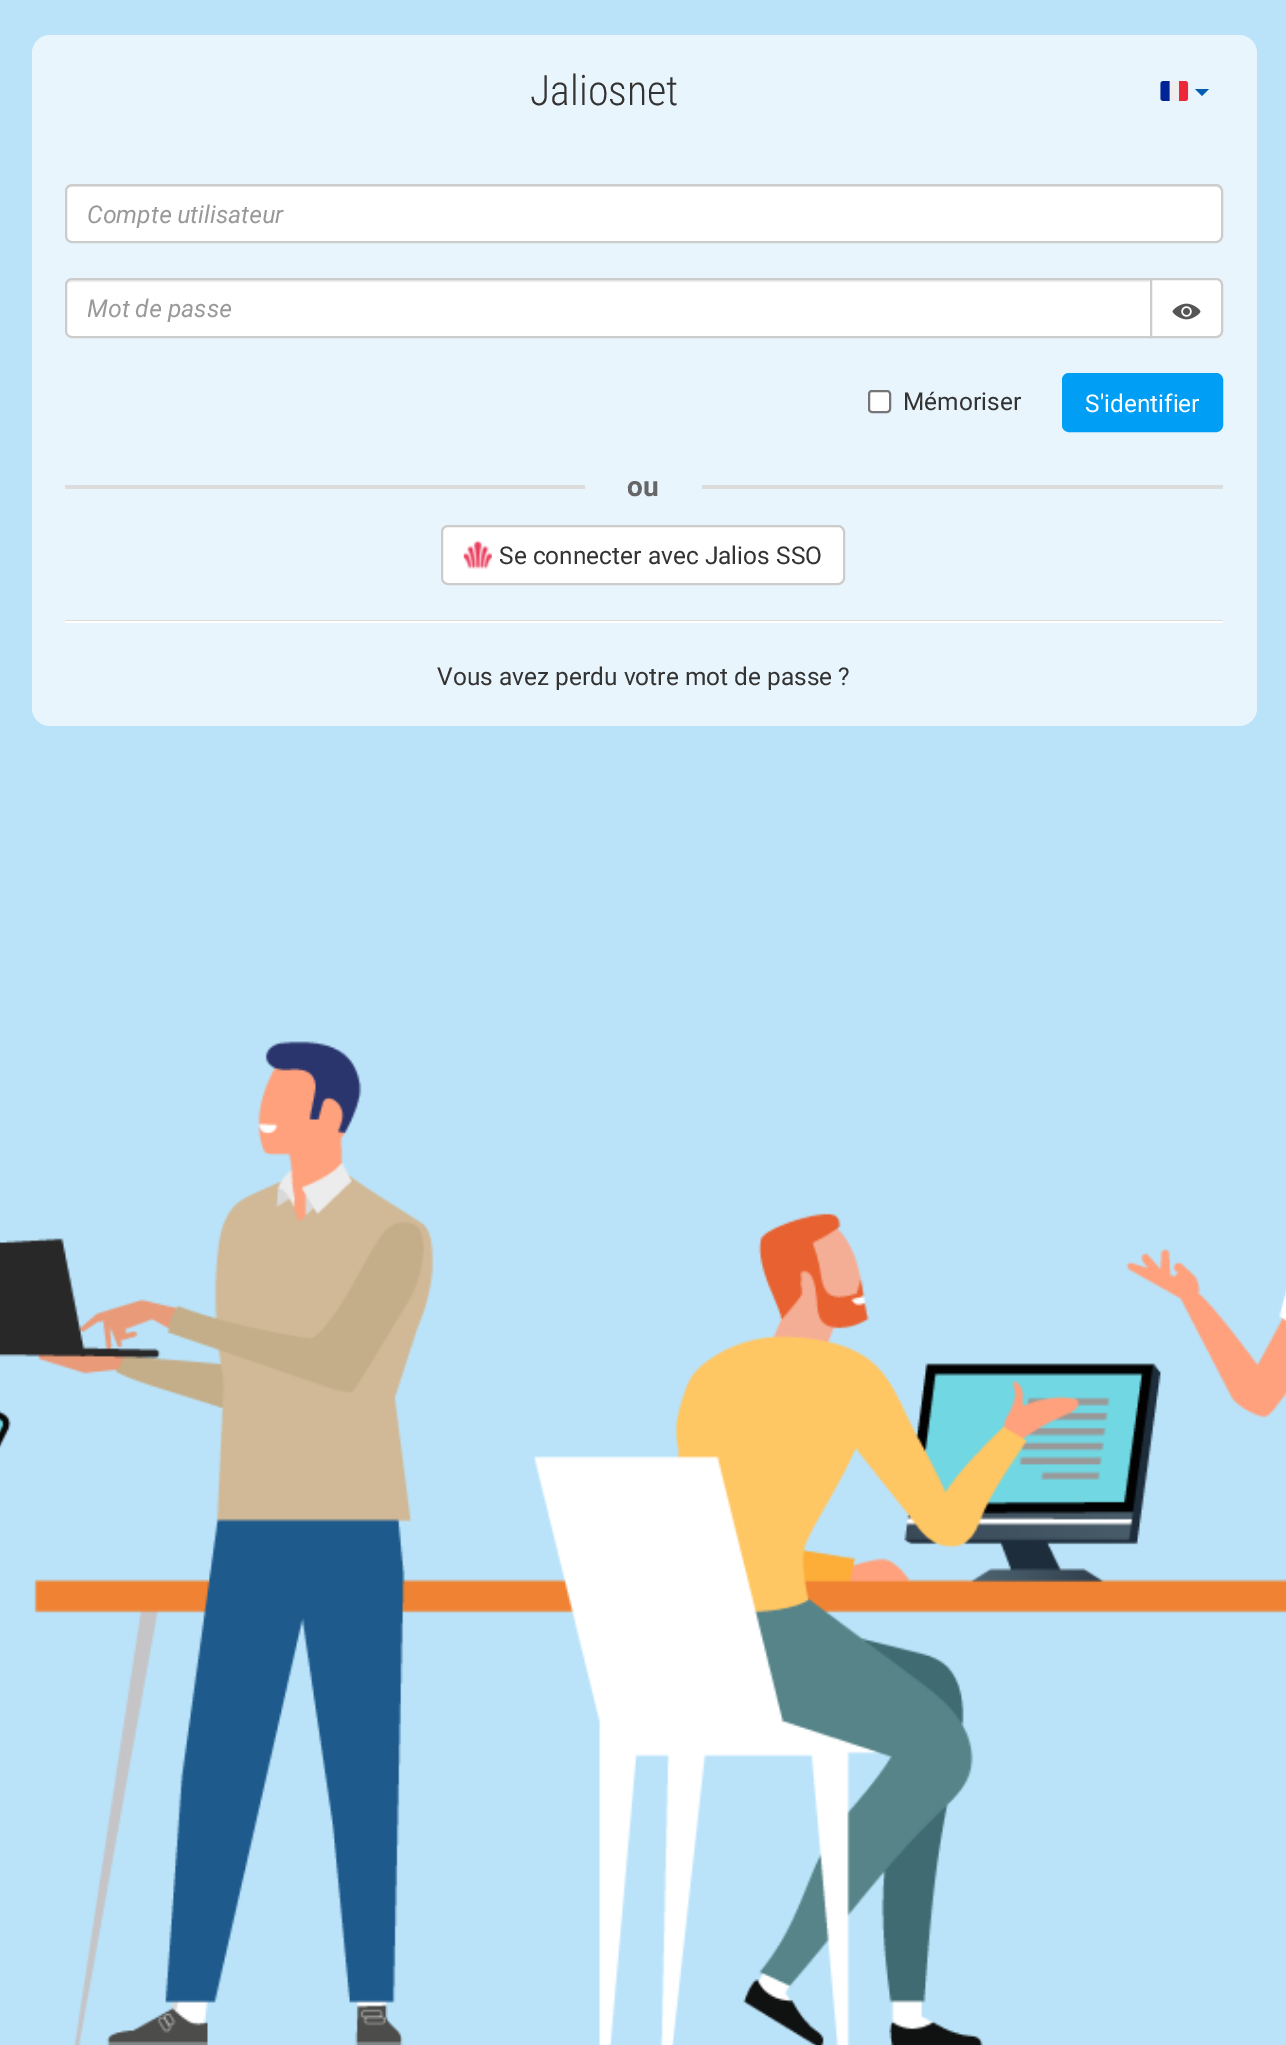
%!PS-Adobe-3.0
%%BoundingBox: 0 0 1286 2045
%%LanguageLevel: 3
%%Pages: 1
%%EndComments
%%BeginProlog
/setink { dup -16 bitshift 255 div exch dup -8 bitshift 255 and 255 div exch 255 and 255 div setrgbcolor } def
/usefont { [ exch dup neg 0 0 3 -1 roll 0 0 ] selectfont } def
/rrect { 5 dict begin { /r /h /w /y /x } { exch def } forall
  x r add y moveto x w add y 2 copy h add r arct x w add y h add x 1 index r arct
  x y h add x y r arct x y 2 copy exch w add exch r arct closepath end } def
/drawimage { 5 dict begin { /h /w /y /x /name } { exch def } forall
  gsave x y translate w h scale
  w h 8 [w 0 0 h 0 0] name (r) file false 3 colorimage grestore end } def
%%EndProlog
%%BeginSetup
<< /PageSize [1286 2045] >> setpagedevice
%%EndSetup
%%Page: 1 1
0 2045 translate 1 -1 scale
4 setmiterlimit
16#BAE3F9 setink
0 0 1286 2045 rectfill
(img1.raw) 0 1041 1286 1004 drawimage
16#E9F5FC setink
32 35 1225 691 18 rrect fill
/RobotoCondensed-Light 42 usefont
16#333333 setink
530 105 moveto (Jaliosnet) show
16#FFFFFF setink
65 184 1158 59 7 rrect fill
16#ECECEC setink
72 187 moveto 1216 187 lineto 1219 187 1222 190 1222 192 curveto 1222 191 lineto 1222 188 1220 186 1217 186 curveto 72 186 lineto 70 186 68 187 67 189 curveto 68 188 70 187 72 187 curveto closepath fill
16#CCCCCC setink
2 setlinewidth
66 185 1156 57 6 rrect stroke
/Roboto-Italic 24.5 usefont
16#999999 setink
87 223 moveto (Compte utilisateur) show
16#FFFFFF setink
72 278 moveto 1152 278 lineto 1152 338 lineto 72 338 lineto 68 338 65 335 65 331 curveto 65 285 lineto 65 281 68 278 72 278 curveto closepath fill
16#ECECEC setink
72 282 moveto 1150 282 lineto 1150 280 lineto 72 280 lineto 70 280 67 282 67 284 curveto 68 283 70 282 72 282 curveto closepath fill
16#CCCCCC setink
72 279 moveto 1151 279 lineto 1151 337 lineto 72 337 lineto 68.5 337 66 334.5 66 331 curveto 66 285 lineto 66 281.5 68.5 279 72 279 curveto closepath stroke
gsave
88 294 1041 28 rectclip
16#999999 setink
87 317 moveto (Mot de passe) show
grestore
16#FFFFFF setink
1151 279 moveto 1216 279 lineto 1219.5 279 1222 281.5 1222 285 curveto 1222 331 lineto 1222 334.5 1219.5 337 1216 337 curveto 1151 337 lineto closepath gsave fill grestore
16#CCCCCC setink
stroke
(img2.raw) 1172 303 29 17 drawimage
16#FFFFFF setink
869 391 21 21 3 rrect gsave fill grestore
16#767676 setink
stroke
/Roboto-Regular 24.5 usefont
16#333333 setink
903 410 moveto (Mémoriser) show
16#009EF5 setink
1063 374 159 57 6 rrect gsave fill grestore
stroke
16#FFFFFF setink
1085 412 moveto (S'identifier) show
16#DCDCDC setink
65 485 520 4 rectfill
/Roboto-Bold 28 usefont
16#666666 setink
627 496 moveto (ou) show
16#DCDCDC setink
702 485 521 4 rectfill
16#FFFFFF setink
442 526 402 58 6 rrect gsave fill grestore
16#CCCCCC setink
stroke
(img3.raw) 463 540 29 29 drawimage
/Roboto-Regular 24.5 usefont
16#333333 setink
499 564 moveto (Se connecter avec Jalios SSO) show
(img4.raw) 1160 81 29 20 drawimage
16#005DB4 setink
1195 89 moveto 1209 89 lineto 1202 96 lineto closepath fill
16#DDDBDA setink
65 620 1158 1 rectfill
16#FFFFFF setink
65 621 1158 2 rectfill
16#333333 setink
437 685 moveto (Vous avez perdu votre mot de passe ?) show
showpage
%%EOF
